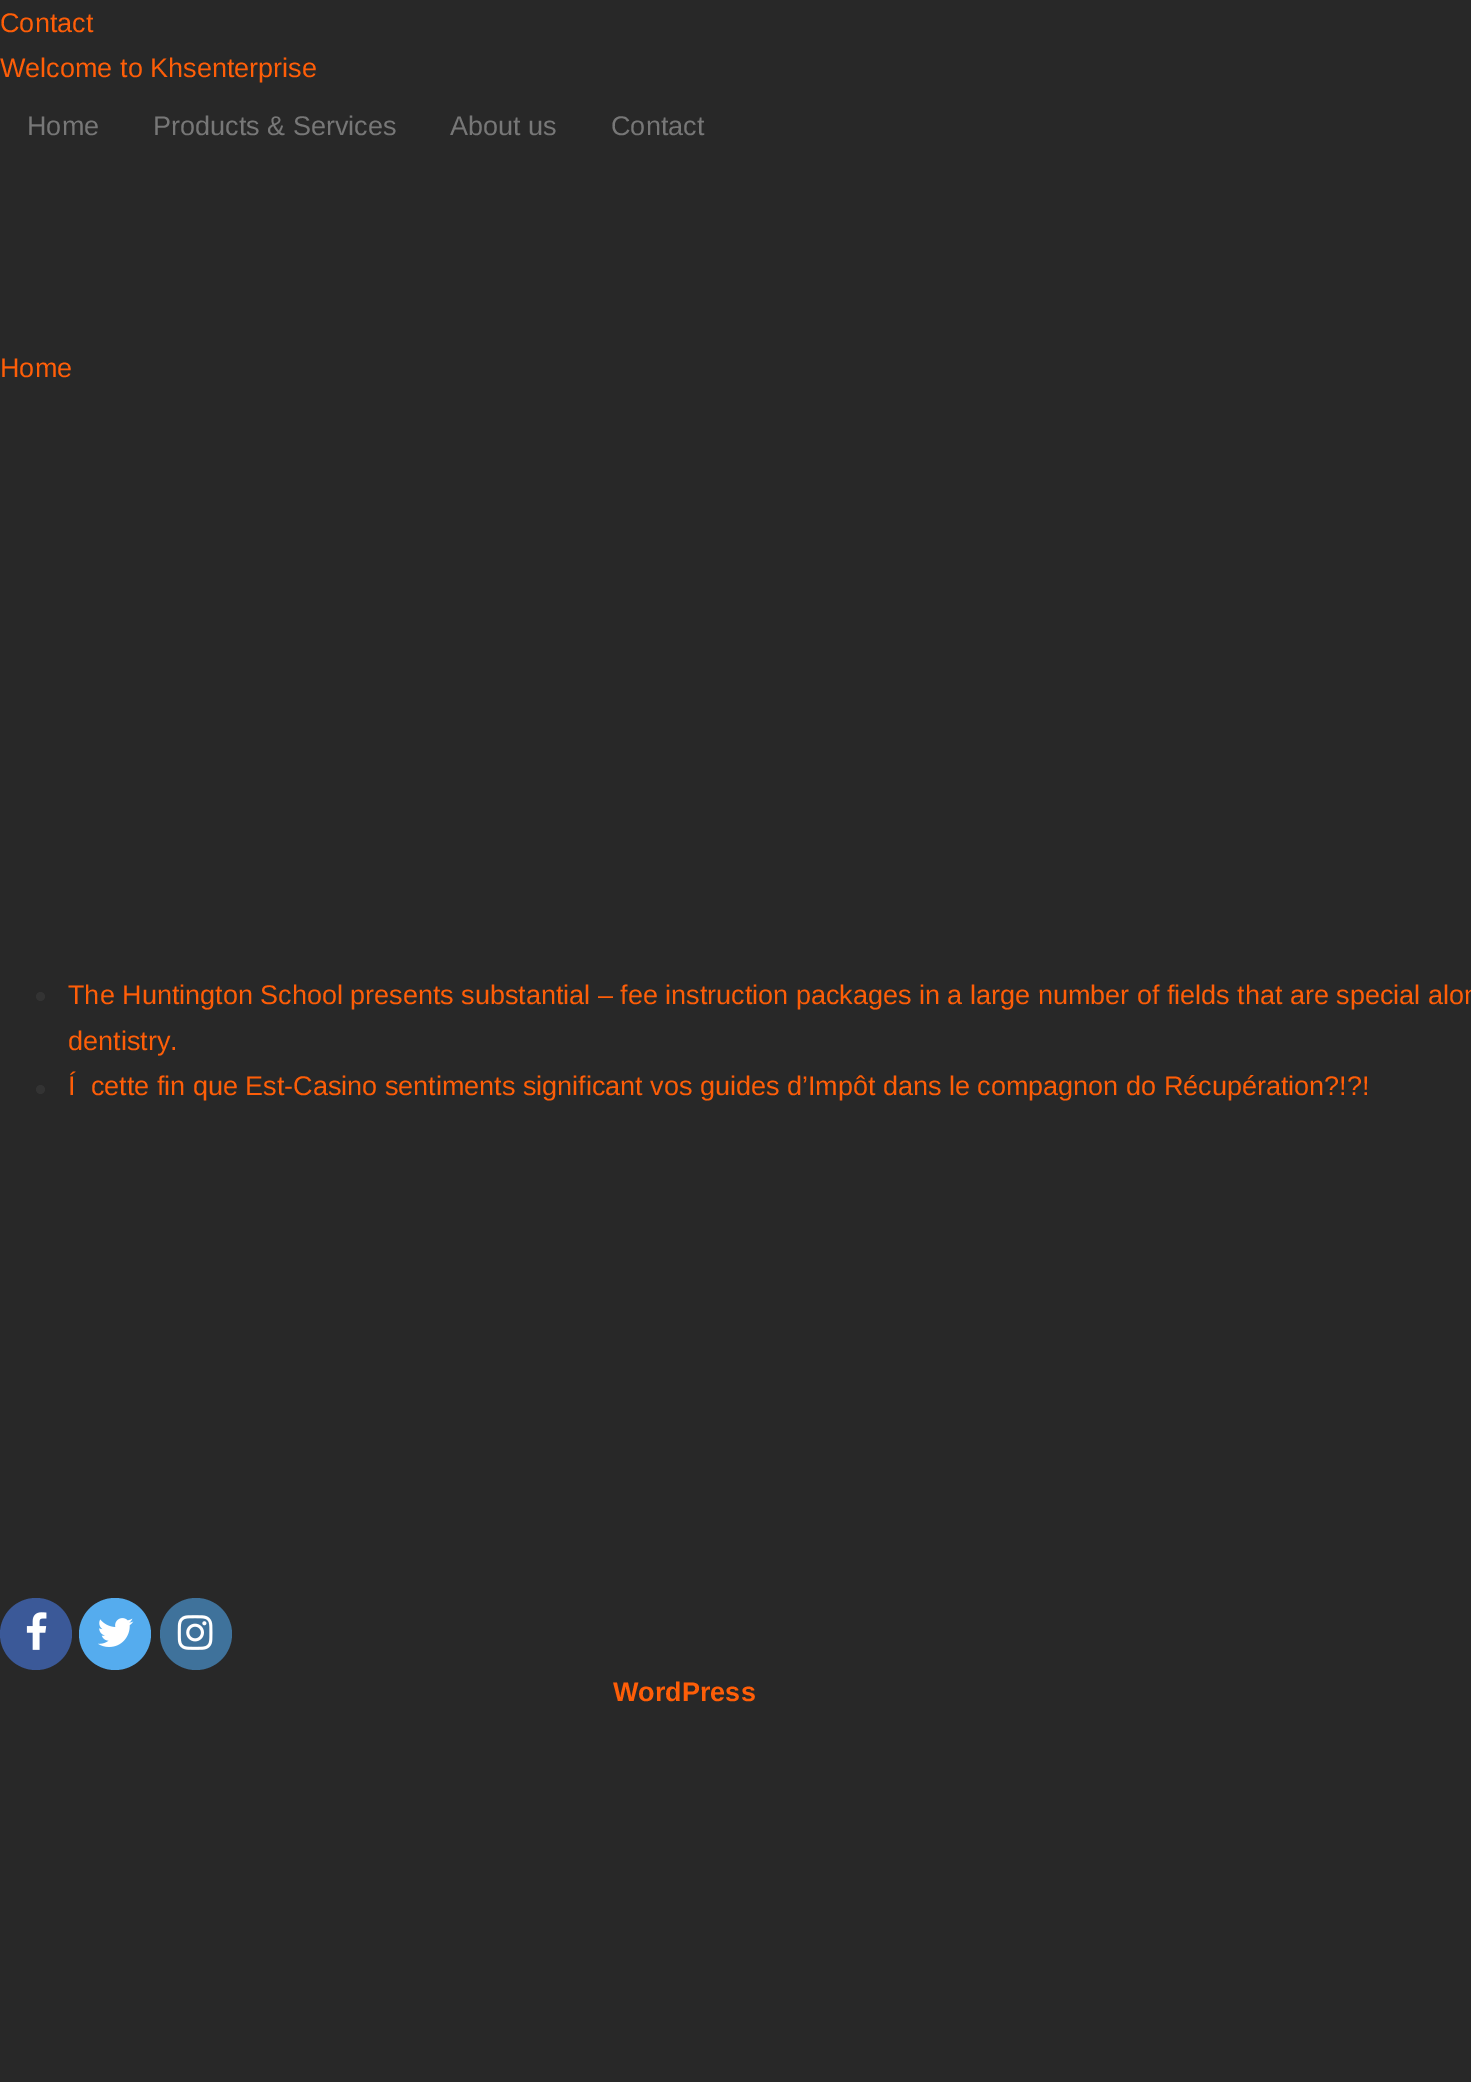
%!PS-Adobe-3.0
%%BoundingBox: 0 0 1471 2082
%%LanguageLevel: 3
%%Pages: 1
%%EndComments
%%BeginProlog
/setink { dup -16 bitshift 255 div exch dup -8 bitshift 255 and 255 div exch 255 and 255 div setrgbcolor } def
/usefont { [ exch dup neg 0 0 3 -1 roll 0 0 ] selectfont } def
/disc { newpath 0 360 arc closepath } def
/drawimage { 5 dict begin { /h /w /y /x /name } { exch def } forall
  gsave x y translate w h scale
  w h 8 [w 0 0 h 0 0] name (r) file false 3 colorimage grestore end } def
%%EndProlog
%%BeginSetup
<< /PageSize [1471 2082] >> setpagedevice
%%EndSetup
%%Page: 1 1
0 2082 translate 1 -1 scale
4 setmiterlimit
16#282828 setink
0 0 1471 2082 rectfill
/LiberationSans-Regular 27 usefont
16#FE5E08 setink
0 32 moveto (Contact) show
0 77 moveto (Welcome to Khsenterprise) show
16#777777 setink
[
    [(Home) 27 135]
    [(Products & Services) 153 135]
    [(About us) 450 135]
    [(Contact) 611 135]
] { aload pop moveto show } forall
16#FE5E08 setink
0 377 moveto (Home) show
16#333333 setink
40.5 996.5 4.5 disc fill
16#FE5E08 setink
68 1004 moveto (The Huntington School presents substantial – fee instruction packages in a large number of fields that are special alon) show
68 1050 moveto (dentistry.) show
16#333333 setink
40.5 1089.5 4.5 disc fill
16#FE5E08 setink
68 1095 moveto (Í  cette fin que Est-Casino sentiments significant vos guides d’Impôt dans le compagnon do Récupération?!?!) show
16#3B5998 setink
36 1634 36 disc fill
(img1.raw) 26 1612 21 38 drawimage
16#55ACEE setink
115 1634 36 disc fill
(img2.raw) 98 1618 36 29 drawimage
16#3F729B setink
196 1634 36 disc fill
(img3.raw) 177 1615 36 35 drawimage
/LiberationSans-Bold 27 usefont
16#FE5E08 setink
613 1701 moveto (WordPress) show
showpage
%%EOF
